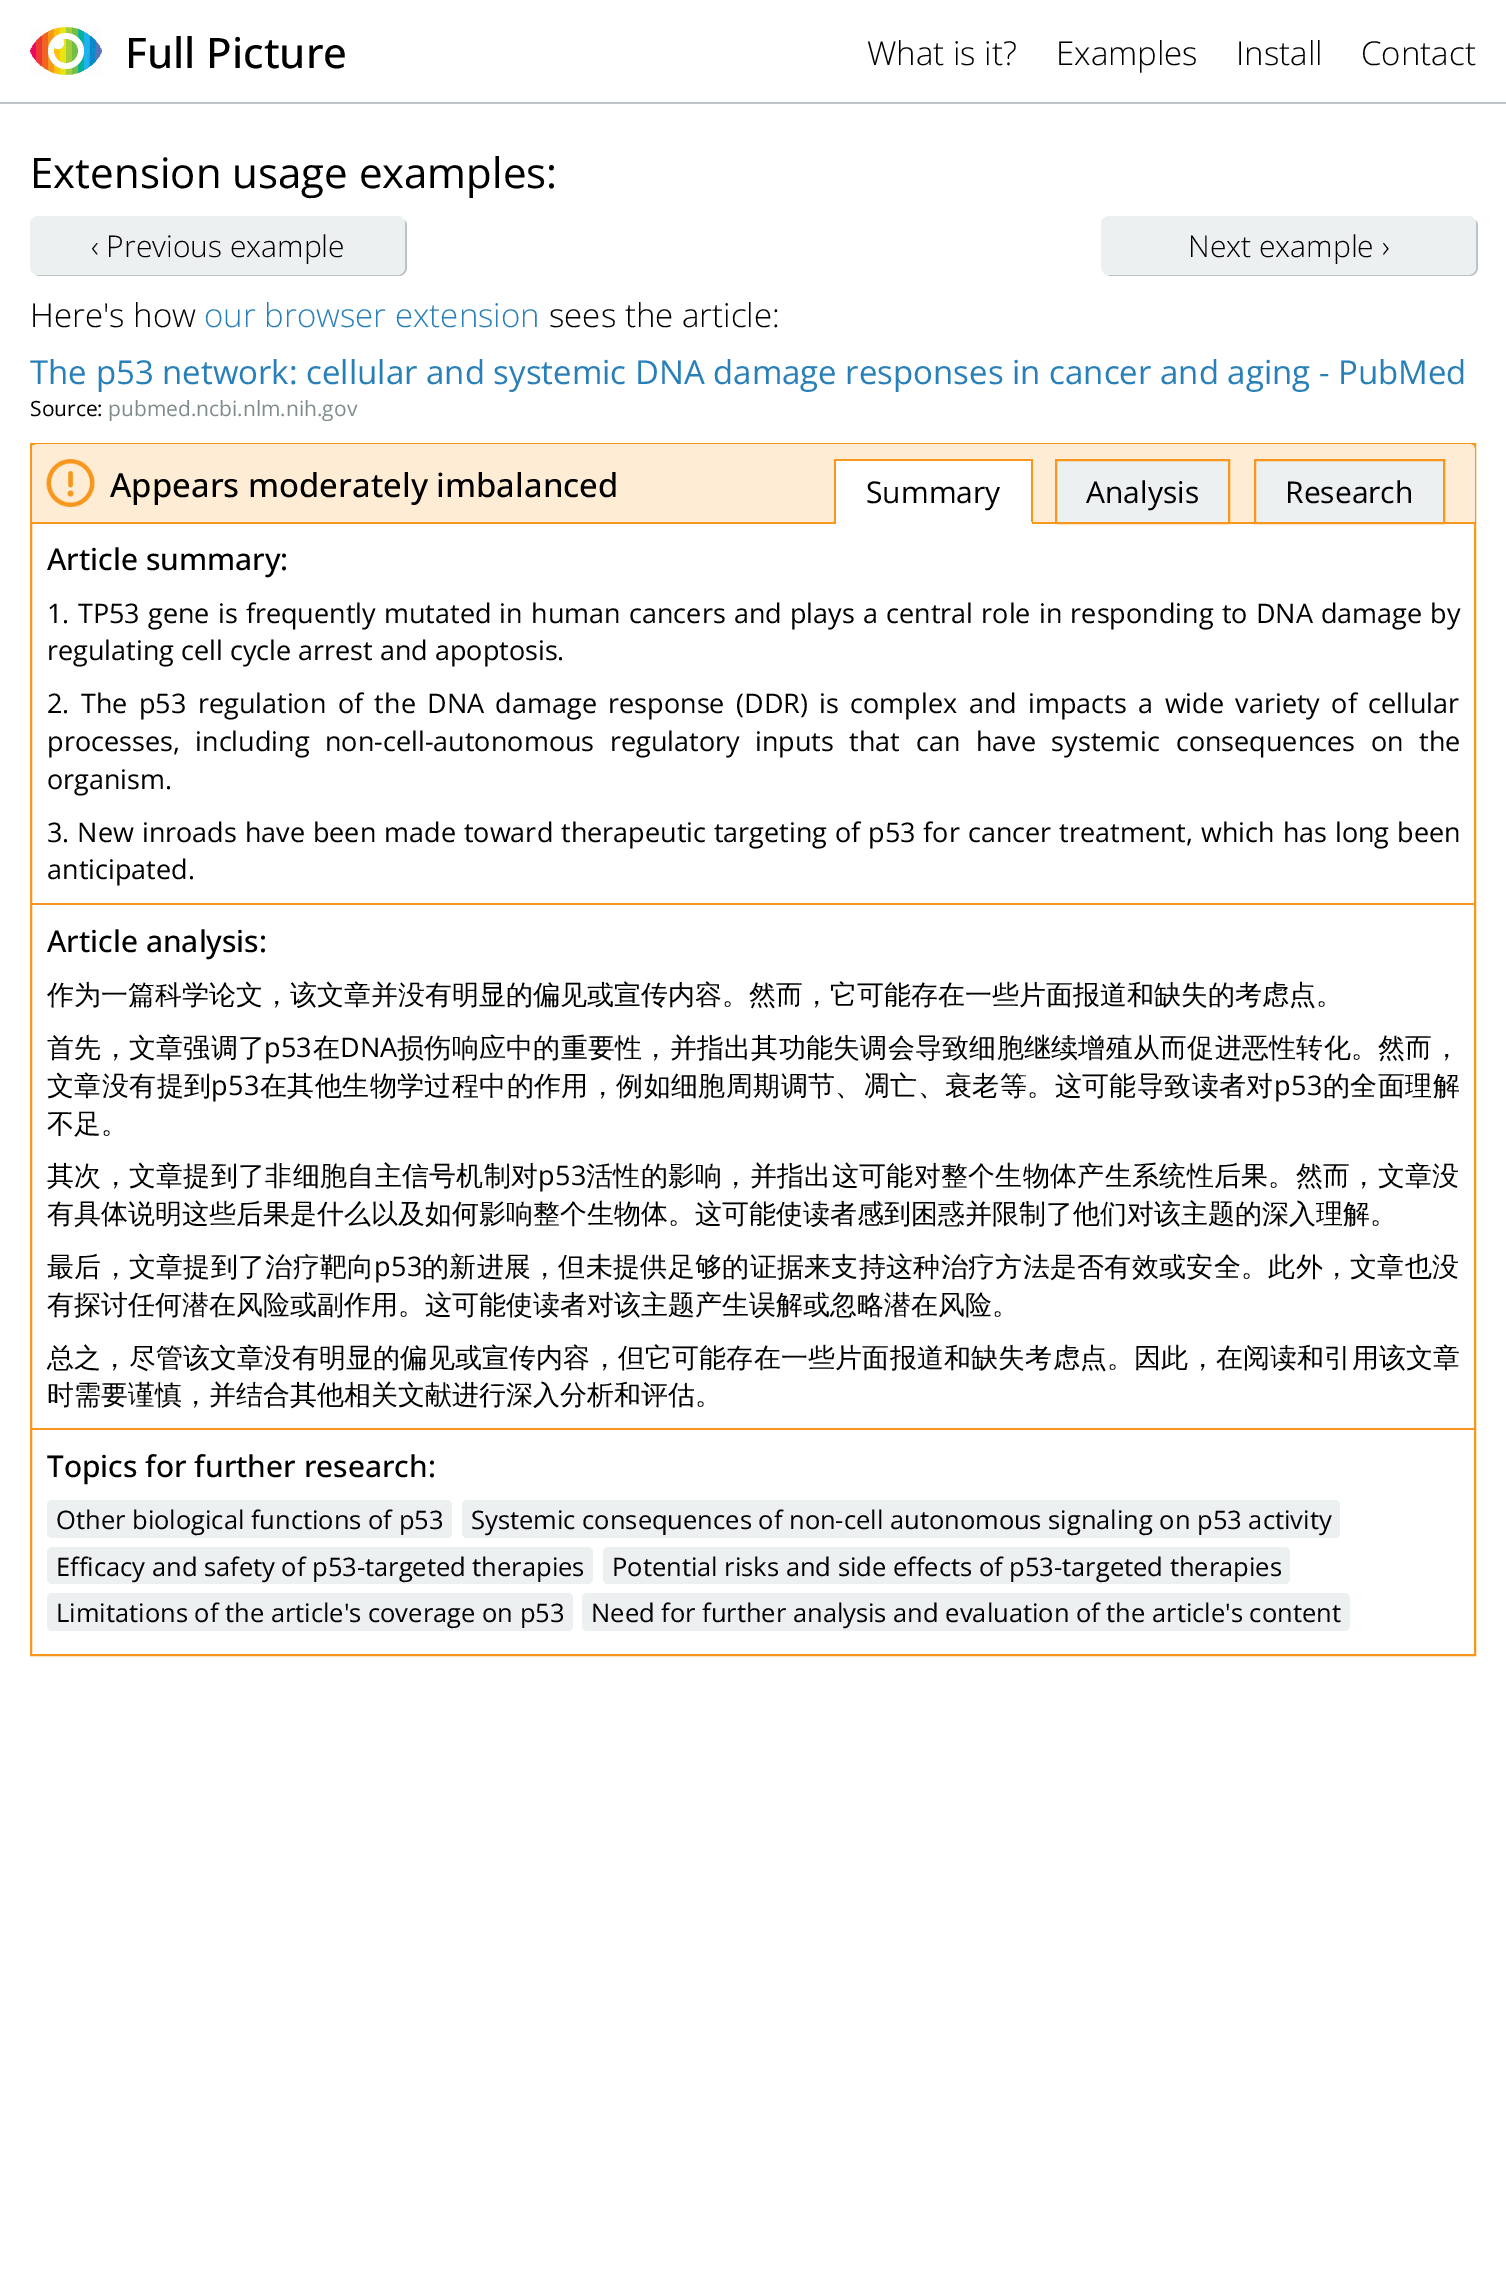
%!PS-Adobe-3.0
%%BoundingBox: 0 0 1506 2272
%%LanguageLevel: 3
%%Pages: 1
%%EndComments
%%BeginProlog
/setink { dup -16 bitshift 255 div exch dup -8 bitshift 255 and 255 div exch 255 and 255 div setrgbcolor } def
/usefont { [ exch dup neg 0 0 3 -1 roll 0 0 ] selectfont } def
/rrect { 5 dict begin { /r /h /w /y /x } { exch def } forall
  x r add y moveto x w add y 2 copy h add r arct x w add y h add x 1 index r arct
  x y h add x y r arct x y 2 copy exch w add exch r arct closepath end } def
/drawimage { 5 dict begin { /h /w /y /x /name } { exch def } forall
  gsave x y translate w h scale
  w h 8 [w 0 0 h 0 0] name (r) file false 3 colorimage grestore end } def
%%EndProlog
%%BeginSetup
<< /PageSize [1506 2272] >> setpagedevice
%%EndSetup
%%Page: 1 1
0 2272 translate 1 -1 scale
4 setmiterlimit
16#FFFFFF setink
0 0 1506 2272 rectfill
16#BDC3C7 setink
0 102 1506 2 rectfill
(img1.raw) 30 27 72 48 drawimage
/OpenSans-Medium 42 usefont
16#000000 setink
125 68 moveto (Full Picture) show
/OpenSans-Light 33 usefont
[
    [(What is it?) 867 65]
    [(Examples) 1056 65]
    [(Install) 1236 65]
    [(Contact) 1361 65]
] { aload pop moveto show } forall
/OpenSans-Regular 42 usefont
30 188 moveto (Extension usage examples:) show
16#BDC3C7 setink
35 274 moveto 36 275 38 276 40 276 curveto 399 276 lineto 403 276 407 272 407 268 curveto 407 226 lineto 407 223 406 221 404 220 curveto 405 221 405 222 405 224 curveto 405 267 lineto 405 271 402 274 398 274 curveto 38 274 lineto closepath fill
16#ECF0F1 setink
30 216 375 59 8 rrect fill
/OpenSans-Light 30 usefont
16#000000 setink
91 257 moveto (‹ Previous example) show
16#BDC3C7 setink
1106 274 moveto 1107 275 1109 276 1111 276 curveto 1470 276 lineto 1474 276 1478 272 1478 268 curveto 1478 226 lineto 1478 223 1477 221 1475 220 curveto 1476 221 1476 222 1476 224 curveto 1476 267 lineto 1476 271 1473 274 1468 274 curveto 1108 274 lineto closepath fill
16#ECF0F1 setink
1101 216 375 59 8 rrect fill
16#000000 setink
1188 257 moveto (Next example ›) show
/OpenSans-Light 33 usefont
30 327 moveto (Here's how) show
16#2980B9 setink
204 327 moveto (our browser extension) show
16#000000 setink
549 327 moveto (sees the article:) show
/OpenSans-Regular 33 usefont
16#2980B9 setink
30 384 moveto (The p53 network: cellular and systemic DNA damage responses in cancer and aging - PubMed) show
/OpenSans-Regular 21 usefont
16#000000 setink
30 416 moveto (Source:) show
16#7F8C8D setink
108 416 moveto (pubmed.ncbi.nlm.nih.gov) show
16#F7971E setink
2 setlinewidth
31 444 1444 1211 rectstroke
16#FFECD4 setink
38 444 moveto 1469 444 lineto 1472.5 444 1475 446.5 1475 450 curveto 1475 522 lineto 32 522 lineto 32 450 lineto 32 446.5 34.5 444 38 444 curveto closepath fill
(img2.raw) 46 459 49 48 drawimage
/OpenSans-Medium 33 usefont
16#000000 setink
110 497 moveto (Appears moderately imbalanced) show
[
    [836 461 195 61 16#FFFFFF]
    [834 459 198 2 16#F7971E]
    [32 522 1443 2 16#F7971E]
    [1031 459 2 65 16#F7971E]
    [834 522 198 2 16#FFFFFF]
    [834 459 2 65 16#F7971E]
] { aload pop setink rectfill } forall
/OpenSans-Regular 30 usefont
16#000000 setink
866 503 moveto (Summary) show
16#ECF0F1 setink
1056 460 moveto 1229 460 lineto 1229 523 lineto 1056 523 lineto closepath gsave fill grestore
16#F7971E setink
stroke
16#000000 setink
1086 503 moveto (Analysis) show
16#ECF0F1 setink
1255 460 moveto 1444 460 lineto 1444 523 lineto 1255 523 lineto closepath gsave fill grestore
16#F7971E setink
stroke
16#000000 setink
1285 503 moveto (Research) show
/OpenSans-Medium 30 usefont
47 570 moveto (Article summary:) show
/OpenSans-Regular 27 usefont
47 623 moveto 1.2 0 32 (1. TP53 gene is frequently mutated in human cancers and plays a central role in responding to DNA damage by) widthshow
47 660 moveto (regulating cell cycle arrest and apoptosis.) show
47 713 moveto 4.4 0 32 (2. The p53 regulation of the DNA damage response \(DDR\) is complex and impacts a wide variety of cellular) widthshow
47 751 moveto 8.5 0 32 (processes, including non-cell-autonomous regulatory inputs that can have systemic consequences on the) widthshow
47 789 moveto (organism.) show
47 842 moveto 0.9 0 32 (3. New inroads have been made toward therapeutic targeting of p53 for cancer treatment, which has long been) widthshow
47 879 moveto (anticipated.) show
16#F7971E setink
32 903 1443 2 rectfill
/OpenSans-Medium 30 usefont
16#000000 setink
47 952 moveto (Article analysis:) show
/WenQuanYiZenHei-Medium 27 usefont
47 1004 moveto (作为一篇科学论文，该文章并没有明显的偏见或宣传内容。然而，它可能存在一些片面报道和缺失的考虑点。) show
47 1057 moveto 0.25 0 (首先，文章强调了) ashow
/OpenSans-Regular 27 usefont
264 1057 moveto 0.25 0 (p53) ashow
/WenQuanYiZenHei-Medium 27 usefont
313 1057 moveto 0.25 0 (在) ashow
/OpenSans-Regular 27 usefont
340 1057 moveto 0.25 0 (DNA) ashow
/WenQuanYiZenHei-Medium 27 usefont
397 1057 moveto 0.25 0 (损伤响应中的重要性，并指出其功能失调会导致细胞继续增殖从而促进恶性转化。然而，) ashow
47 1095 moveto 0.4 0 (文章没有提到) ashow
/OpenSans-Regular 27 usefont
211 1095 moveto 0.4 0 (p53) ashow
/WenQuanYiZenHei-Medium 27 usefont
260 1095 moveto 0.4 0 (在其他生物学过程中的作用，例如细胞周期调节、凋亡、衰老等。这可能导致读者对) ashow
/OpenSans-Regular 27 usefont
1274 1095 moveto 0.4 0 (p53) ashow
/WenQuanYiZenHei-Medium 27 usefont
1323 1095 moveto 0.4 0 (的全面理解) ashow
47 1133 moveto (不足。) show
47 1185 moveto 0.3 0 (其次，文章提到了非细胞自主信号机制对) ashow
/OpenSans-Regular 27 usefont
538 1185 moveto 0.3 0 (p53) ashow
/WenQuanYiZenHei-Medium 27 usefont
586 1185 moveto 0.3 0 (活性的影响，并指出这可能对整个生物体产生系统性后果。然而，文章没) ashow
47 1223 moveto (有具体说明这些后果是什么以及如何影响整个生物体。这可能使读者感到困惑并限制了他们对该主题的深入理解。) show
47 1276 moveto 0.3 0 (最后，文章提到了治疗靶向) ashow
/OpenSans-Regular 27 usefont
374 1276 moveto 0.3 0 (p53) ashow
/WenQuanYiZenHei-Medium 27 usefont
422 1276 moveto 0.3 0 (的新进展，但未提供足够的证据来支持这种治疗方法是否有效或安全。此外，文章也没) ashow
47 1314 moveto (有探讨任何潜在风险或副作用。这可能使读者对该主题产生误解或忽略潜在风险。) show
47 1367 moveto 0.18 0 (总之，尽管该文章没有明显的偏见或宣传内容，但它可能存在一些片面报道和缺失考虑点。因此，在阅读和引用该文章) ashow
47 1404 moveto (时需要谨慎，并结合其他相关文献进行深入分析和评估。) show
16#F7971E setink
32 1428 1443 2 rectfill
/OpenSans-Medium 30 usefont
16#000000 setink
47 1477 moveto (Topics for further research:) show
16#ECF0F1 setink
47 1500 405 38 5 rrect fill
/OpenSans-Regular 25.5 usefont
16#000000 setink
56 1529 moveto (Other biological functions of p53) show
16#ECF0F1 setink
462 1500 878 38 5 rrect fill
16#000000 setink
471 1529 moveto (Systemic consequences of non-cell autonomous signaling on p53 activity) show
16#ECF0F1 setink
47 1547 546 37 5 rrect fill
16#000000 setink
56 1576 moveto (Efficacy and safety of p53-targeted therapies) show
16#ECF0F1 setink
603 1547 687 37 5 rrect fill
16#000000 setink
612 1576 moveto (Potential risks and side effects of p53-targeted therapies) show
16#ECF0F1 setink
47 1593 526 38 5 rrect fill
16#000000 setink
56 1622 moveto (Limitations of the article's coverage on p53) show
16#ECF0F1 setink
582 1593 768 38 5 rrect fill
16#000000 setink
591 1622 moveto (Need for further analysis and evaluation of the article's content) show
showpage
%%EOF
